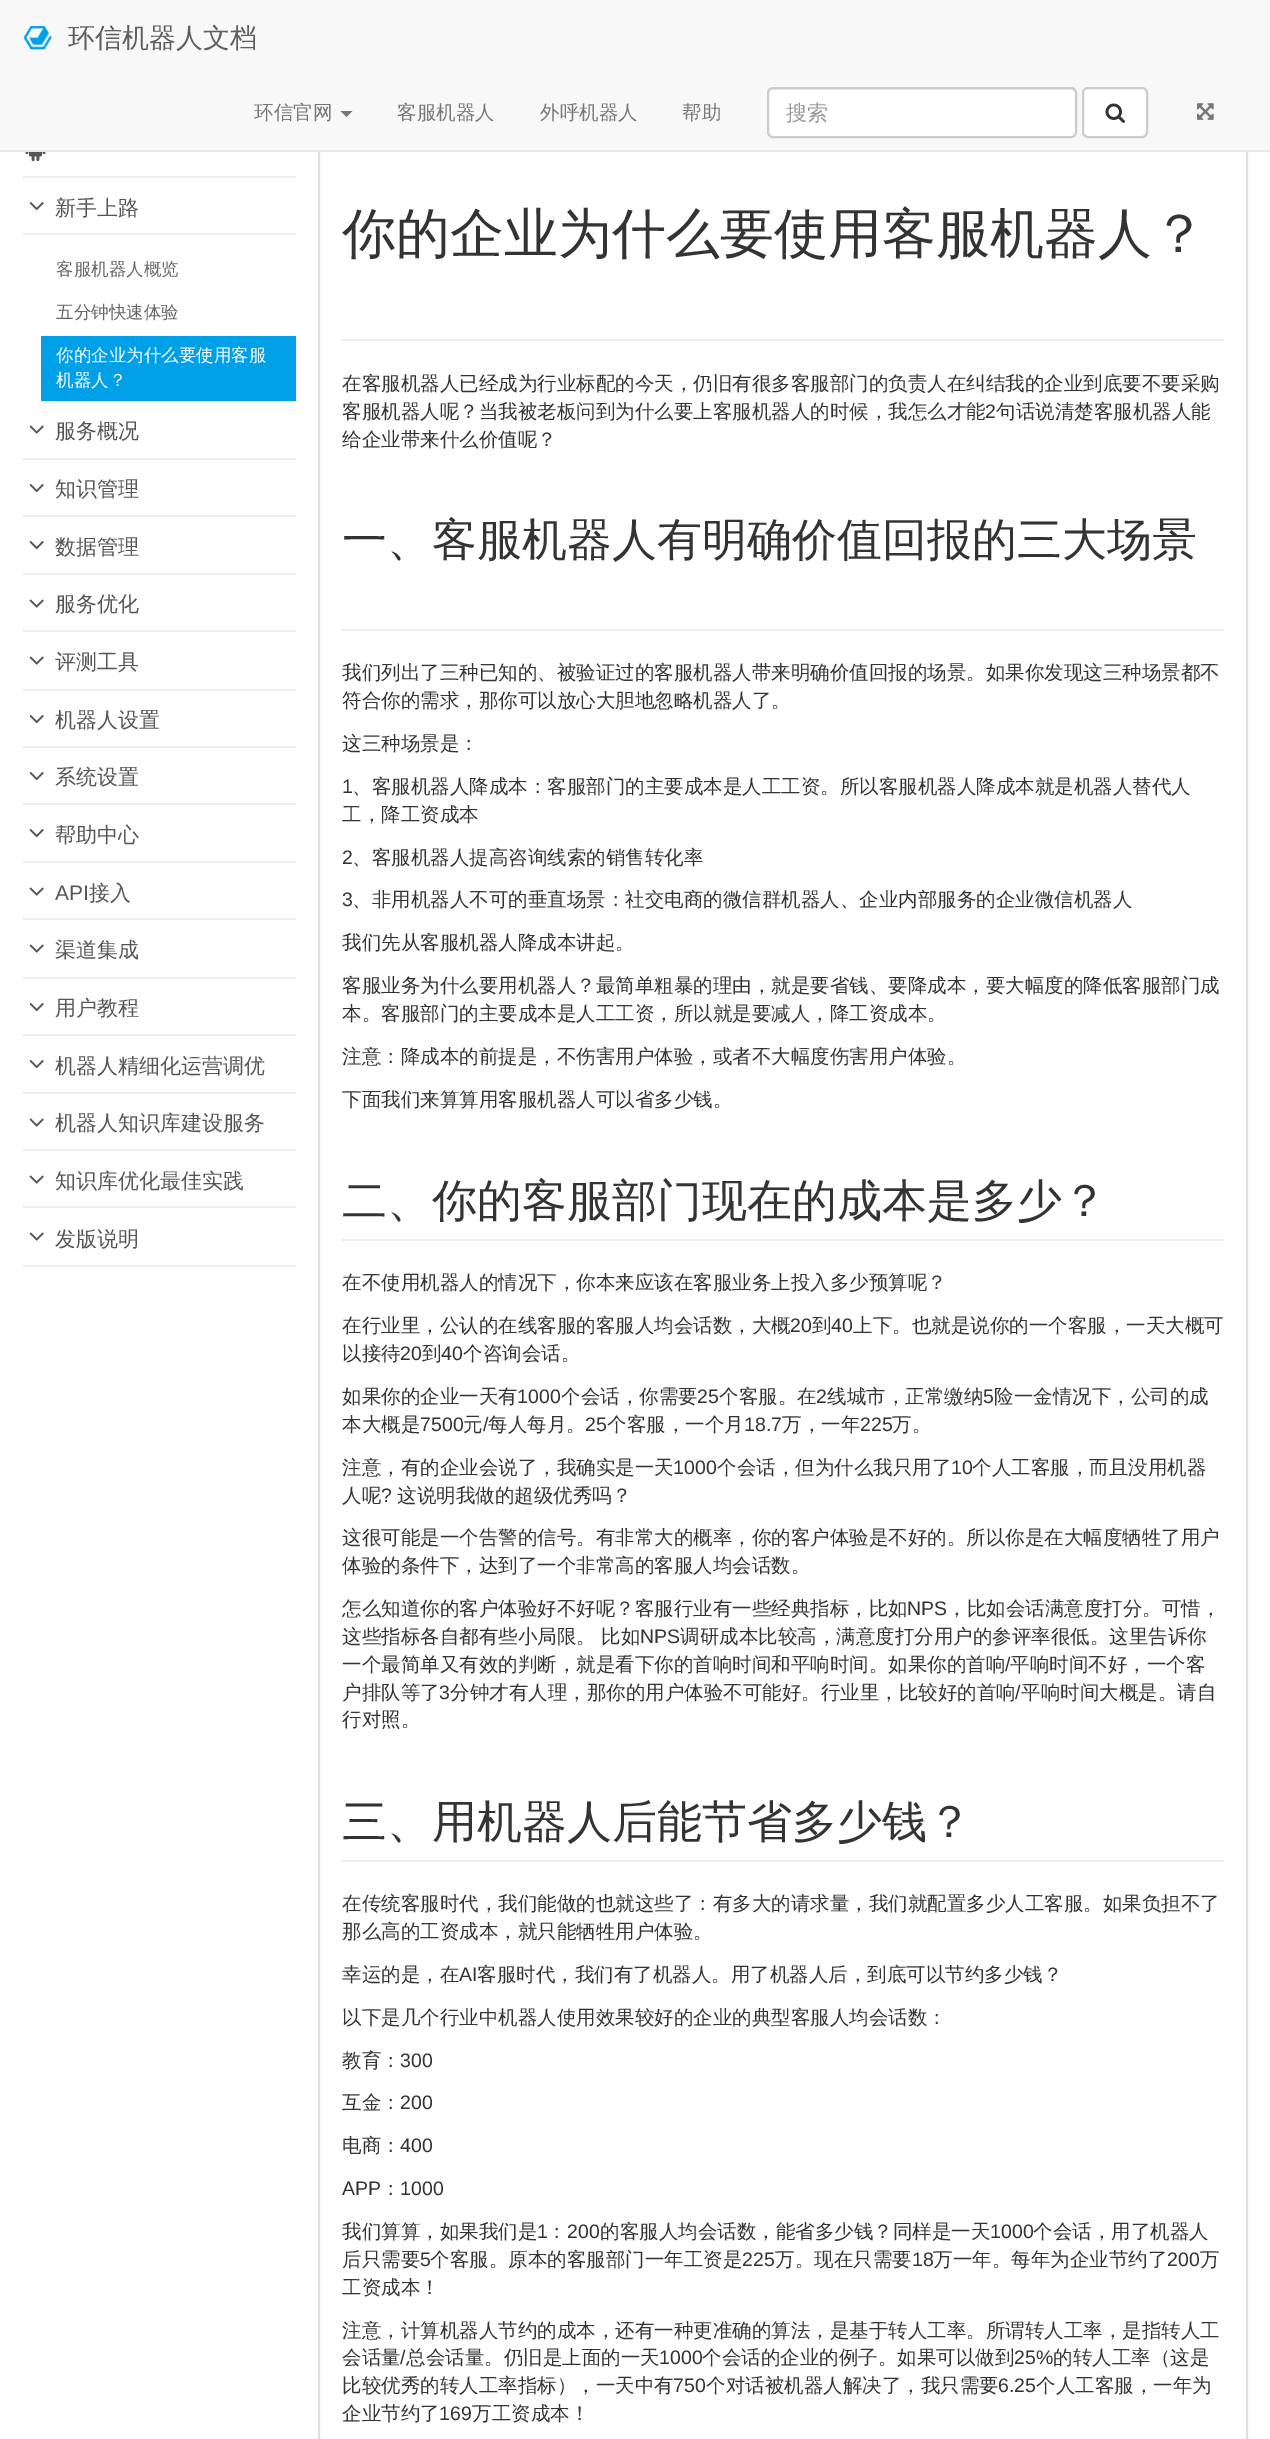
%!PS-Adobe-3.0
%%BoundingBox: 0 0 1270 2439
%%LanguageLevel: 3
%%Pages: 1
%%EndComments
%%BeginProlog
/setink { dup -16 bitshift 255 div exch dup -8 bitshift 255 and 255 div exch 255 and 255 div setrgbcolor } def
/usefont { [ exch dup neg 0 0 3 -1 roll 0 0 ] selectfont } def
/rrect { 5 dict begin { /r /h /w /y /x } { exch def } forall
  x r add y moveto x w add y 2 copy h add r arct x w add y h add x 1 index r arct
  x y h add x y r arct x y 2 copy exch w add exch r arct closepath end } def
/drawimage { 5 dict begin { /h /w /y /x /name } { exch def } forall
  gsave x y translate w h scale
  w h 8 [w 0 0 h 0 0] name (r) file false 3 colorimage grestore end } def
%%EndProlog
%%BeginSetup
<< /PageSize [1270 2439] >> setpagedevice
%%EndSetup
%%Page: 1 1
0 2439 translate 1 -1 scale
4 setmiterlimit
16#FFFFFF setink
0 0 1270 2439 rectfill
16#DDDDDD setink
2 setlinewidth
319 121 928 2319 rectstroke
16#F8F8F8 setink
0 0 1270 150 rectfill
16#E7E7E7 setink
0 150 1270 2 rectfill
(img1.raw) 23 25 29 25 drawimage
/WenQuanYiZenHei-Medium 27 usefont
16#5E5E5E setink
68 47 moveto (环信机器人文档) show
/WenQuanYiZenHei-Medium 19.5 usefont
16#777777 setink
254 119 moveto (环信官网) show
340.5 111 moveto 352.5 111 lineto 346.5 117 lineto closepath fill
[
    [(客服机器人) 397 119]
    [(外呼机器人) 540 119]
    [(帮助) 682 119]
] { aload pop moveto show } forall
16#FFFFFF setink
767 87 310 51 6 rrect fill
16#ECECEC setink
772 90 moveto 1071 90 lineto 1073 90 1076 92 1076 94 curveto 1076 91 1074 89 1071 89 curveto 773 89 lineto 770 89 768 91 768 94 curveto 768 92 770 90 772 90 curveto closepath fill
16#CCCCCC setink
768 88 308 49 5 rrect stroke
/WenQuanYiZenHei-Medium 21 usefont
16#999999 setink
786 120 moveto (搜索) show
16#FFFFFF setink
1083 88 64 49 5 rrect gsave fill grestore
16#CCCCCC setink
stroke
(img2.raw) 1105 103 20 20 drawimage
(img3.raw) 1197 103 17 17 drawimage
16#EEEEEE setink
23 176 273 2 rectfill
(img4.raw) 25 152 21 10 drawimage
23 233 273 2 rectfill
(img5.raw) 29 202 15 9 drawimage
16#555555 setink
55 215 moveto (新手上路) show
/WenQuanYiZenHei-Medium 17.5 usefont
16#666666 setink
56 275 moveto (客服机器人概览) show
56 318 moveto (五分钟快速体验) show
16#00A0E9 setink
41 336 255 65 rectfill
16#FFFFFF setink
56 361 moveto (你的企业为什么要使用客服) show
56 386 moveto (机器人？) show
16#EEEEEE setink
23 458 273 2 rectfill
(img6.raw) 29 425 15 9 drawimage
/WenQuanYiZenHei-Medium 21 usefont
16#555555 setink
55 438 moveto (服务概况) show
16#EEEEEE setink
23 515 273 2 rectfill
(img5.raw) 29 484 15 9 drawimage
16#555555 setink
55 496 moveto (知识管理) show
16#EEEEEE setink
23 573 273 2 rectfill
(img5.raw) 29 541 15 9 drawimage
16#555555 setink
55 554 moveto (数据管理) show
16#EEEEEE setink
23 630 273 2 rectfill
(img6.raw) 29 599 15 9 drawimage
16#555555 setink
55 611 moveto (服务优化) show
16#EEEEEE setink
23 689 273 2 rectfill
(img6.raw) 29 656 15 9 drawimage
16#555555 setink
55 669 moveto (评测工具) show
16#EEEEEE setink
23 746 273 2 rectfill
(img5.raw) 29 715 15 9 drawimage
16#555555 setink
55 727 moveto (机器人设置) show
16#EEEEEE setink
23 803 273 2 rectfill
(img5.raw) 29 772 15 9 drawimage
16#555555 setink
55 784 moveto (系统设置) show
16#EEEEEE setink
23 861 273 2 rectfill
(img5.raw) 29 829 15 9 drawimage
16#555555 setink
55 842 moveto (帮助中心) show
16#EEEEEE setink
23 918 273 2 rectfill
(img6.raw) 29 887 15 9 drawimage
/LiberationSans-Regular 21 usefont
16#555555 setink
55 900 moveto (API) show
/WenQuanYiZenHei-Medium 21 usefont
89 900 moveto (接入) show
16#EEEEEE setink
23 977 273 2 rectfill
(img6.raw) 29 944 15 9 drawimage
16#555555 setink
55 957 moveto (渠道集成) show
16#EEEEEE setink
23 1034 273 2 rectfill
(img5.raw) 29 1003 15 9 drawimage
16#555555 setink
55 1015 moveto (用户教程) show
16#EEEEEE setink
23 1092 273 2 rectfill
(img5.raw) 29 1060 15 9 drawimage
16#555555 setink
55 1073 moveto (机器人精细化运营调优) show
16#EEEEEE setink
23 1149 273 2 rectfill
(img6.raw) 29 1118 15 9 drawimage
16#555555 setink
55 1130 moveto (机器人知识库建设服务) show
16#EEEEEE setink
23 1206 273 2 rectfill
(img6.raw) 29 1175 15 9 drawimage
16#555555 setink
55 1188 moveto (知识库优化最佳实践) show
16#EEEEEE setink
23 1265 273 2 rectfill
(img6.raw) 29 1232 15 9 drawimage
16#555555 setink
55 1246 moveto (发版说明) show
16#EEEEEE setink
342 339 882 2 rectfill
/WenQuanYiZenHei-Medium 54 usefont
16#333333 setink
342 252 moveto (你的企业为什么要使用客服机器人？) show
/WenQuanYiZenHei-Medium 19.5 usefont
342 390 moveto (在客服机器人已经成为行业标配的今天，仍旧有很多客服部门的负责人在纠结我的企业到底要不要采购) show
342 418 moveto (客服机器人呢？当我被老板问到为什么要上客服机器人的时候，我怎么才能) show
/LiberationSans-Regular 19.5 usefont
985 418 moveto (2) show
/WenQuanYiZenHei-Medium 19.5 usefont
996 418 moveto (句话说清楚客服机器人能) show
342 446 moveto (给企业带来什么价值呢？) show
16#EEEEEE setink
342 629 882 2 rectfill
/WenQuanYiZenHei-Medium 45 usefont
16#333333 setink
342 555 moveto (一、客服机器人有明确价值回报的三大场景) show
/WenQuanYiZenHei-Medium 19.5 usefont
[
    [(我们列出了三种已知的、被验证过的客服机器人带来明确价值回报的场景。如果你发现这三种场景都不) 342 679]
    [(符合你的需求，那你可以放心大胆地忽略机器人了。) 342 707]
    [(这三种场景是：) 342 750]
] { aload pop moveto show } forall
/LiberationSans-Regular 19.5 usefont
342 793 moveto (1) show
/WenQuanYiZenHei-Medium 19.5 usefont
352 793 moveto (、客服机器人降成本：客服部门的主要成本是人工工资。所以客服机器人降成本就是机器人替代人) show
342 821 moveto (工，降工资成本) show
/LiberationSans-Regular 19.5 usefont
342 864 moveto (2) show
/WenQuanYiZenHei-Medium 19.5 usefont
352 864 moveto (、客服机器人提高咨询线索的销售转化率) show
/LiberationSans-Regular 19.5 usefont
342 906 moveto (3) show
/WenQuanYiZenHei-Medium 19.5 usefont
[
    [(、非用机器人不可的垂直场景：社交电商的微信群机器人、企业内部服务的企业微信机器人) 352 906]
    [(我们先从客服机器人降成本讲起。) 342 949]
    [(客服业务为什么要用机器人？最简单粗暴的理由，就是要省钱、要降成本，要大幅度的降低客服部门成) 342 992]
    [(本。客服部门的主要成本是人工工资，所以就是要减人，降工资成本。) 342 1020]
    [(注意：降成本的前提是，不伤害用户体验，或者不大幅度伤害用户体验。) 342 1063]
    [(下面我们来算算用客服机器人可以省多少钱。) 342 1106]
] { aload pop moveto show } forall
16#EEEEEE setink
342 1239 882 2 rectfill
/WenQuanYiZenHei-Medium 45 usefont
16#333333 setink
342 1216 moveto (二、你的客服部门现在的成本是多少？) show
/WenQuanYiZenHei-Medium 19.5 usefont
342 1289 moveto (在不使用机器人的情况下，你本来应该在客服业务上投入多少预算呢？) show
342 1332 moveto (在行业里，公认的在线客服的客服人均会话数，大概) show
/LiberationSans-Regular 19.5 usefont
790 1332 moveto (20) show
/WenQuanYiZenHei-Medium 19.5 usefont
812 1332 moveto (到) show
/LiberationSans-Regular 19.5 usefont
831 1332 moveto (40) show
/WenQuanYiZenHei-Medium 19.5 usefont
853 1332 moveto (上下。也就是说你的一个客服，一天大概可) show
342 1360 moveto (以接待) show
/LiberationSans-Regular 19.5 usefont
400 1360 moveto (20) show
/WenQuanYiZenHei-Medium 19.5 usefont
422 1360 moveto (到) show
/LiberationSans-Regular 19.5 usefont
441 1360 moveto (40) show
/WenQuanYiZenHei-Medium 19.5 usefont
463 1360 moveto (个咨询会话。) show
342 1403 moveto (如果你的企业一天有) show
/LiberationSans-Regular 19.5 usefont
517 1403 moveto (1000) show
/WenQuanYiZenHei-Medium 19.5 usefont
561 1403 moveto (个会话，你需要) show
/LiberationSans-Regular 19.5 usefont
697 1403 moveto (25) show
/WenQuanYiZenHei-Medium 19.5 usefont
719 1403 moveto (个客服。在) show
/LiberationSans-Regular 19.5 usefont
816 1403 moveto (2) show
/WenQuanYiZenHei-Medium 19.5 usefont
827 1403 moveto (线城市，正常缴纳) show
/LiberationSans-Regular 19.5 usefont
983 1403 moveto (5) show
/WenQuanYiZenHei-Medium 19.5 usefont
994 1403 moveto (险一金情况下，公司的成) show
342 1431 moveto (本大概是) show
/LiberationSans-Regular 19.5 usefont
420 1431 moveto (7500) show
/WenQuanYiZenHei-Medium 19.5 usefont
463 1431 moveto (元) show
/LiberationSans-Regular 19.5 usefont
483 1431 moveto (/) show
/WenQuanYiZenHei-Medium 19.5 usefont
488 1431 moveto (每人每月。) show
/LiberationSans-Regular 19.5 usefont
585 1431 moveto (25) show
/WenQuanYiZenHei-Medium 19.5 usefont
607 1431 moveto (个客服，一个月) show
/LiberationSans-Regular 19.5 usefont
744 1431 moveto (18.7) show
/WenQuanYiZenHei-Medium 19.5 usefont
782 1431 moveto (万，一年) show
/LiberationSans-Regular 19.5 usefont
860 1431 moveto (225) show
/WenQuanYiZenHei-Medium 19.5 usefont
892 1431 moveto (万。) show
342 1474 moveto (注意，有的企业会说了，我确实是一天) show
/LiberationSans-Regular 19.5 usefont
673 1474 moveto (1000) show
/WenQuanYiZenHei-Medium 19.5 usefont
717 1474 moveto (个会话，但为什么我只用了) show
/LiberationSans-Regular 19.5 usefont
951 1474 moveto (10) show
/WenQuanYiZenHei-Medium 19.5 usefont
972 1474 moveto (个人工客服，而且没用机器) show
342 1502 moveto (人呢) show
/LiberationSans-Regular 19.5 usefont
381 1502 moveto (?) show
/WenQuanYiZenHei-Medium 19.5 usefont
[
    [(这说明我做的超级优秀吗？) 397 1502]
    [(这很可能是一个告警的信号。有非常大的概率，你的客户体验是不好的。所以你是在大幅度牺牲了用户) 342 1544]
    [(体验的条件下，达到了一个非常高的客服人均会话数。) 342 1572]
    [(怎么知道你的客户体验好不好呢？客服行业有一些经典指标，比如) 342 1615]
] { aload pop moveto show } forall
/LiberationSans-Regular 19.5 usefont
907 1615 moveto (NPS) show
/WenQuanYiZenHei-Medium 19.5 usefont
947 1615 moveto (，比如会话满意度打分。可惜，) show
342 1643 moveto (这些指标各自都有些小局限。 比如) show
/LiberationSans-Regular 19.5 usefont
640 1643 moveto (NPS) show
/WenQuanYiZenHei-Medium 19.5 usefont
680 1643 moveto (调研成本比较高，满意度打分用户的参评率很低。这里告诉你) show
342 1671 moveto (一个最简单又有效的判断，就是看下你的首响时间和平响时间。如果你的首响) show
/LiberationSans-Regular 19.5 usefont
1005 1671 moveto (/) show
/WenQuanYiZenHei-Medium 19.5 usefont
1010 1671 moveto (平响时间不好，一个客) show
342 1699 moveto (户排队等了) show
/LiberationSans-Regular 19.5 usefont
439 1699 moveto (3) show
/WenQuanYiZenHei-Medium 19.5 usefont
450 1699 moveto (分钟才有人理，那你的用户体验不可能好。行业里，比较好的首响) show
/LiberationSans-Regular 19.5 usefont
1015 1699 moveto (/) show
/WenQuanYiZenHei-Medium 19.5 usefont
1021 1699 moveto (平响时间大概是。请自) show
342 1726 moveto (行对照。) show
16#EEEEEE setink
342 1860 882 2 rectfill
/WenQuanYiZenHei-Medium 45 usefont
16#333333 setink
342 1837 moveto (三、用机器人后能节省多少钱？) show
/WenQuanYiZenHei-Medium 19.5 usefont
[
    [(在传统客服时代，我们能做的也就这些了：有多大的请求量，我们就配置多少人工客服。如果负担不了) 342 1910]
    [(那么高的工资成本，就只能牺牲用户体验。) 342 1938]
    [(幸运的是，在) 342 1981]
] { aload pop moveto show } forall
/LiberationSans-Regular 19.5 usefont
459 1981 moveto (AI) show
/WenQuanYiZenHei-Medium 19.5 usefont
[
    [(客服时代，我们有了机器人。用了机器人后，到底可以节约多少钱？) 477 1981]
    [(以下是几个行业中机器人使用效果较好的企业的典型客服人均会话数：) 342 2024]
    [(教育：) 342 2067]
] { aload pop moveto show } forall
/LiberationSans-Regular 19.5 usefont
400 2067 moveto (300) show
/WenQuanYiZenHei-Medium 19.5 usefont
342 2109 moveto (互金：) show
/LiberationSans-Regular 19.5 usefont
400 2109 moveto (200) show
/WenQuanYiZenHei-Medium 19.5 usefont
342 2152 moveto (电商：) show
/LiberationSans-Regular 19.5 usefont
400 2152 moveto (400) show
342 2195 moveto (APP) show
/WenQuanYiZenHei-Medium 19.5 usefont
381 2195 moveto (：) show
/LiberationSans-Regular 19.5 usefont
400 2195 moveto (1000) show
/WenQuanYiZenHei-Medium 19.5 usefont
342 2238 moveto (我们算算，如果我们是) show
/LiberationSans-Regular 19.5 usefont
537 2238 moveto (1) show
/WenQuanYiZenHei-Medium 19.5 usefont
547 2238 moveto (：) show
/LiberationSans-Regular 19.5 usefont
567 2238 moveto (200) show
/WenQuanYiZenHei-Medium 19.5 usefont
600 2238 moveto (的客服人均会话数，能省多少钱？同样是一天) show
/LiberationSans-Regular 19.5 usefont
990 2238 moveto (1000) show
/WenQuanYiZenHei-Medium 19.5 usefont
1033 2238 moveto (个会话，用了机器人) show
342 2266 moveto (后只需要) show
/LiberationSans-Regular 19.5 usefont
420 2266 moveto (5) show
/WenQuanYiZenHei-Medium 19.5 usefont
430 2266 moveto (个客服。原本的客服部门一年工资是) show
/LiberationSans-Regular 19.5 usefont
742 2266 moveto (225) show
/WenQuanYiZenHei-Medium 19.5 usefont
775 2266 moveto (万。现在只需要) show
/LiberationSans-Regular 19.5 usefont
912 2266 moveto (18) show
/WenQuanYiZenHei-Medium 19.5 usefont
933 2266 moveto (万一年。每年为企业节约了) show
/LiberationSans-Regular 19.5 usefont
1167 2266 moveto (200) show
/WenQuanYiZenHei-Medium 19.5 usefont
[
    [(万) 1200 2266]
    [(工资成本！) 342 2294]
    [(注意，计算机器人节约的成本，还有一种更准确的算法，是基于转人工率。所谓转人工率，是指转人工) 342 2337]
    [(会话量) 342 2364]
] { aload pop moveto show } forall
/LiberationSans-Regular 19.5 usefont
400 2364 moveto (/) show
/WenQuanYiZenHei-Medium 19.5 usefont
406 2364 moveto (总会话量。仍旧是上面的一天) show
/LiberationSans-Regular 19.5 usefont
659 2364 moveto (1000) show
/WenQuanYiZenHei-Medium 19.5 usefont
702 2364 moveto (个会话的企业的例子。如果可以做到) show
/LiberationSans-Regular 19.5 usefont
1014 2364 moveto (25%) show
/WenQuanYiZenHei-Medium 19.5 usefont
1053 2364 moveto (的转人工率（这是) show
342 2392 moveto (比较优秀的转人工率指标），一天中有) show
/LiberationSans-Regular 19.5 usefont
673 2392 moveto (750) show
/WenQuanYiZenHei-Medium 19.5 usefont
706 2392 moveto (个对话被机器人解决了，我只需要) show
/LiberationSans-Regular 19.5 usefont
998 2392 moveto (6.25) show
/WenQuanYiZenHei-Medium 19.5 usefont
1036 2392 moveto (个人工客服，一年为) show
342 2420 moveto (企业节约了) show
/LiberationSans-Regular 19.5 usefont
439 2420 moveto (169) show
/WenQuanYiZenHei-Medium 19.5 usefont
472 2420 moveto (万工资成本！) show
showpage
%%EOF
